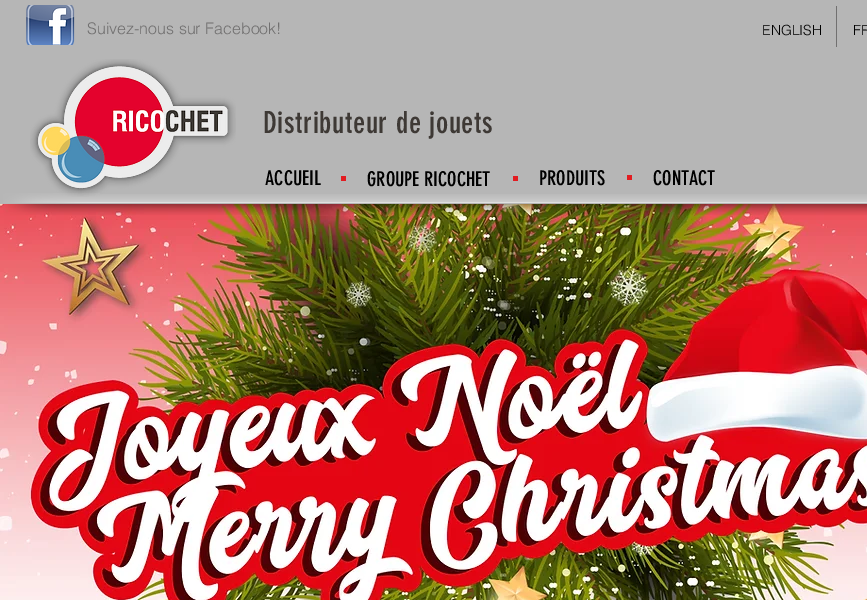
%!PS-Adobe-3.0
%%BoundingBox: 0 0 867 600
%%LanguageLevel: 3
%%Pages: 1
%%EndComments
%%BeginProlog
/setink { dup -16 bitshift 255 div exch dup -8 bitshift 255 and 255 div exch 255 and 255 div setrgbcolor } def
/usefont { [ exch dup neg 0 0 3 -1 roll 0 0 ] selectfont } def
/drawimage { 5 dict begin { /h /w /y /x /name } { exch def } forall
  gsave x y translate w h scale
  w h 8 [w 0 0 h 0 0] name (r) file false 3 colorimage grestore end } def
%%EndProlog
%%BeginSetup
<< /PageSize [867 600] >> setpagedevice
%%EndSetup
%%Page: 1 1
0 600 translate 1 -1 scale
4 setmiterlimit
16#B6B6B6 setink
0 0 867 600 rectfill
/helvetica-Light 16 usefont
16#717070 setink
87 34 moveto (Suivez-nous sur Facebook!) show
(img1.raw) 30 59 206 138 drawimage
/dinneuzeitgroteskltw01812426-Regular 30 usefont
16#3E3935 setink
263 133 moveto 0.6 0 (Distributeur de jouets) ashow
/dinneuzeitgroteskltw01812426-Regular 20 usefont
16#000000 setink
265 185 moveto (ACCUEIL) show
16#E21C21 setink
341 176 5 5 rectfill
16#000000 setink
367 186 moveto (GROUPE RICOCHET) show
16#E21C21 setink
513 176 5 5 rectfill
16#000000 setink
539 185 moveto (PRODUITS) show
16#E21C21 setink
627 175 5 5 rectfill
16#000000 setink
653 185 moveto (CONTACT) show
(img4.raw) 0 204 867 396 drawimage
(img2.raw) 3 193 97 22 drawimage
(img3.raw) 100 194 767 21 drawimage
16#717070 setink
836 6 1 41 rectfill
(img5.raw) 26 5 49 40 drawimage
/helvetica-Light 14 usefont
16#000000 setink
762 35 moveto (ENGLISH) show
853 35 moveto (FR) show
showpage
%%EOF
